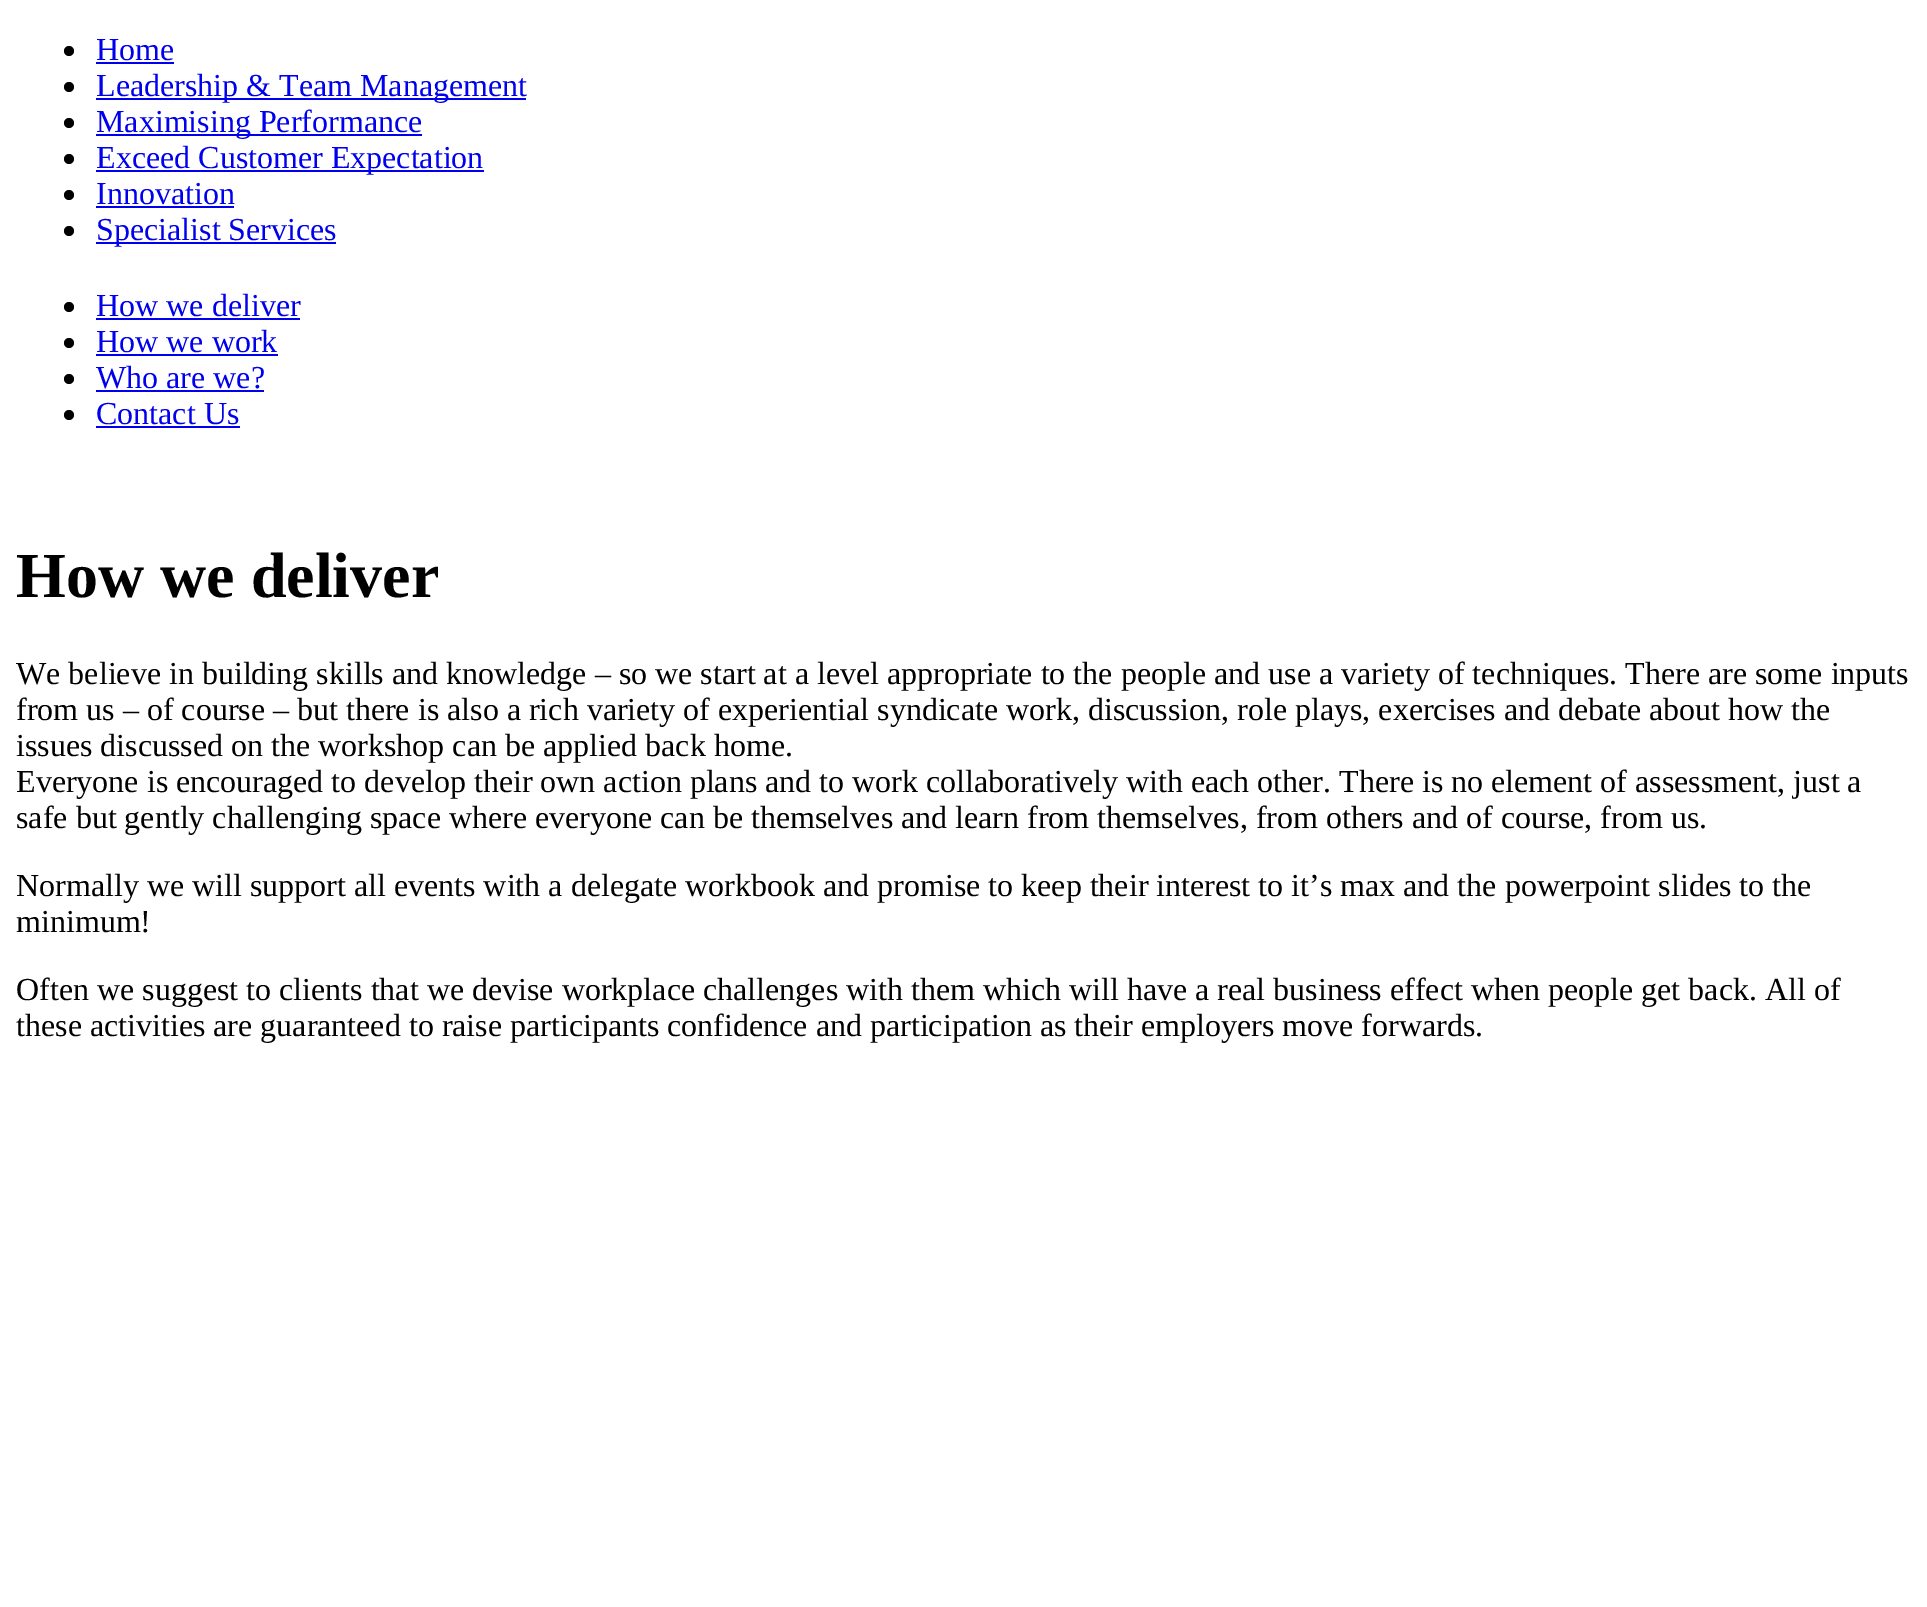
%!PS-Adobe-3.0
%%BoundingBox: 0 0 1927 1607
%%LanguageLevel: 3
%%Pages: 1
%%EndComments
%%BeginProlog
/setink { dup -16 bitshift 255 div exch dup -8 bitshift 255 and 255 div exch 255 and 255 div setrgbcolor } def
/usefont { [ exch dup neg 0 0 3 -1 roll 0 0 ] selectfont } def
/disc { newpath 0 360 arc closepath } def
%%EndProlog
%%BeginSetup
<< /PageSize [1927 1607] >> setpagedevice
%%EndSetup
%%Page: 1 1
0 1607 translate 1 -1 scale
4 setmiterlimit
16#FFFFFF setink
0 0 1927 1607 rectfill
16#000000 setink
69 51 5 disc fill
/LiberationSerif-Regular 32 usefont
16#0000EE setink
96 60 moveto (Home) show
96 62 78 2 rectfill
16#000000 setink
69 87 5 disc fill
16#0000EE setink
96 98 430 2 rectfill
96 96 moveto (Leadership & Team Management) show
16#000000 setink
69 123 5 disc fill
16#0000EE setink
96 134 326 2 rectfill
96 132 moveto (Maximising Performance) show
16#000000 setink
69 159 5 disc fill
16#0000EE setink
96 170 388 2 rectfill
96 168 moveto (Exceed Customer Expectation) show
16#000000 setink
69 195 5 disc fill
16#0000EE setink
96 204 moveto (Innovation) show
96 206 138 2 rectfill
16#000000 setink
69 231 5 disc fill
16#0000EE setink
96 242 240 2 rectfill
96 240 moveto (Specialist Services) show
16#000000 setink
69 307 5 disc fill
16#0000EE setink
96 316 moveto (How we deliver) show
96 318 204 2 rectfill
16#000000 setink
69 343 5 disc fill
16#0000EE setink
96 352 moveto (How we work) show
96 354 182 2 rectfill
16#000000 setink
69 379 5 disc fill
16#0000EE setink
96 388 moveto (Who are we?) show
96 390 168 2 rectfill
16#000000 setink
69 415 5 disc fill
16#0000EE setink
96 424 moveto (Contact Us) show
96 426 144 2 rectfill
/LiberationSerif-Bold 64 usefont
16#000000 setink
16 597 moveto (How we deliver) show
/LiberationSerif-Regular 32 usefont
[
    [(We believe in building skills and knowledge – so we start at a level appropriate to the people and use a variety of techniques. There are some inputs) 16 684]
    [(from us – of course – but there is also a rich variety of experiential syndicate work, discussion, role plays, exercises and debate about how the) 16 720]
    [(issues discussed on the workshop can be applied back home.) 16 756]
    [(Everyone is encouraged to develop their own action plans and to work collaboratively with each other. There is no element of assessment, just a) 16 792]
    [(safe but gently challenging space where everyone can be themselves and learn from themselves, from others and of course, from us.) 16 828]
    [(Normally we will support all events with a delegate workbook and promise to keep their interest to it’s max and the powerpoint slides to the) 16 896]
    [(minimum!) 16 932]
    [(Often we suggest to clients that we devise workplace challenges with them which will have a real business effect when people get back. All of) 16 1000]
    [(these activities are guaranteed to raise participants confidence and participation as their employers move forwards.) 16 1036]
] { aload pop moveto show } forall
showpage
%%EOF
